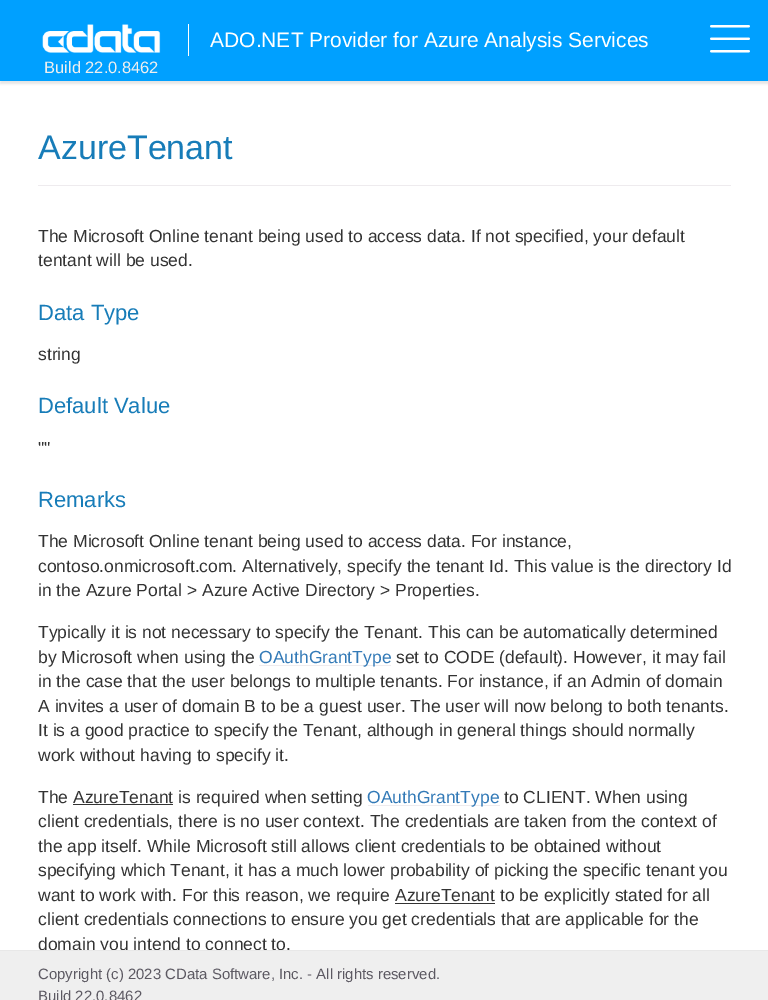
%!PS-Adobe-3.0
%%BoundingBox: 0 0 768 1000
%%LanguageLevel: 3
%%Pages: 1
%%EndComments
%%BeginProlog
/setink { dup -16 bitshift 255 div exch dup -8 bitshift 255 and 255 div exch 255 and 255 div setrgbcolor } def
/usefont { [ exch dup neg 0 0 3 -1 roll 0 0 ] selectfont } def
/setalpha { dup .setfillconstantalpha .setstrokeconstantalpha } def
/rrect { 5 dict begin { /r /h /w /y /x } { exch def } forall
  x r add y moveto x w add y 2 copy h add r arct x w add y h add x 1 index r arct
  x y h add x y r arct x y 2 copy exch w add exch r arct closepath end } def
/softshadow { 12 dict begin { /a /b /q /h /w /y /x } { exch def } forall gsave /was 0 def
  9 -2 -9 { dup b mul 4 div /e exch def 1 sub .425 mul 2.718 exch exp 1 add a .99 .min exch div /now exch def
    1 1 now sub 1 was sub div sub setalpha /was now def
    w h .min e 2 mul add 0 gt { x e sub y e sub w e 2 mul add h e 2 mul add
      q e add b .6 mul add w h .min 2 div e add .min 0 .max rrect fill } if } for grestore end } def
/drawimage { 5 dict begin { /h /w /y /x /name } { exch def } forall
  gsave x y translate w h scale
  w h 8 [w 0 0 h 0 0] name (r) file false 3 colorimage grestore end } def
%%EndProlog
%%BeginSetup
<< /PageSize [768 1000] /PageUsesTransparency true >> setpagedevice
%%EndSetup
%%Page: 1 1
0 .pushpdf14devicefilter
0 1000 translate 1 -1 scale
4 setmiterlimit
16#FFFFFF setink
0 0 768 1000 rectfill
16#000000 setink
0 3 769 81 0 1 0.1 softshadow
16#00A0FF setink
0 0 768 81 rectfill
(img1.raw) 42 24 119 29 drawimage
(img2.raw) 710 25 40 28 drawimage
16#FFFFFF setink
188 24 1 32 rectfill
/LiberationSans-Regular 21 usefont
210 47 moveto (ADO.NET Provider for Azure Analysis Services) show
/LiberationSans-Regular 16.5 usefont
16#EFEFEF setink
44 73 moveto (Build 22.0.8462) show
16#EEEBEE setink
38 185 693 1 rectfill
/LiberationSans-Regular 34 usefont
16#177CB8 setink
38 159 moveto (AzureTenant) show
/LiberationSans-Regular 17.5 usefont
16#333333 setink
38 242 moveto (The Microsoft Online tenant being used to access data. If not specified, your default) show
38 266 moveto (tentant will be used.) show
/LiberationSans-Regular 22 usefont
16#177CB8 setink
38 320 moveto (Data Type) show
/LiberationSans-Regular 17.5 usefont
16#333333 setink
38 360 moveto (string) show
/LiberationSans-Regular 22 usefont
16#177CB8 setink
38 413 moveto (Default Value) show
/LiberationSans-Regular 17.5 usefont
16#333333 setink
38 454 moveto ("") show
/LiberationSans-Regular 22 usefont
16#177CB8 setink
38 507 moveto (Remarks) show
/LiberationSans-Regular 17.5 usefont
16#333333 setink
[
    [(The Microsoft Online tenant being used to access data. For instance,) 38 547]
    [(contoso.onmicrosoft.com. Alternatively, specify the tenant Id. This value is the directory Id) 38 572]
    [(in the Azure Portal > Azure Active Directory > Properties.) 38 596]
    [(Typically it is not necessary to specify the Tenant. This can be automatically determined) 38 638]
    [(by Microsoft when using the) 38 663]
] { aload pop moveto show } forall
16#EEEBEE setink
259 665 132 1 rectfill
16#337AB7 setink
259 663 moveto (OAuthGrantType) show
16#333333 setink
[
    [(set to CODE \(default\). However, it may fail) 396 663]
    [(in the case that the user belongs to multiple tenants. For instance, if an Admin of domain) 38 687]
    [(A invites a user of domain B to be a guest user. The user will now belong to both tenants.) 38 712]
    [(It is a good practice to specify the Tenant, although in general things should normally) 38 736]
    [(work without having to specify it.) 38 761]
    [(The AzureTenant is required when setting) 38 803]
] { aload pop moveto show } forall
16#EEEBEE setink
368 805 132 1 rectfill
16#337AB7 setink
367 803 moveto (OAuthGrantType) show
16#333333 setink
504 803 moveto (to CLIENT. When using) show
73 804 100 1 rectfill
[
    [(client credentials, there is no user context. The credentials are taken from the context of) 38 827]
    [(the app itself. While Microsoft still allows client credentials to be obtained without) 38 852]
    [(specifying which Tenant, it has a much lower probability of picking the specific tenant you) 38 876]
    [(want to work with. For this reason, we require AzureTenant to be explicitly stated for all) 38 901]
] { aload pop moveto show } forall
395 903 100 1 rectfill
38 925 moveto (client credentials connections to ensure you get credentials that are applicable for the) show
38 950 moveto (domain you intend to connect to.) show
16#EFEFEF setink
0 951 768 49 rectfill
16#E8E8E8 setink
0 950 768 1 rectfill
/LiberationSans-Regular 14.95 usefont
16#5C5962 setink
38 979 moveto (Copyright \(c\) 2023 CData Software, Inc. - All rights reserved.) show
38 1001 moveto (Build 22.0.8462) show
.poppdf14devicefilter showpage
%%EOF
